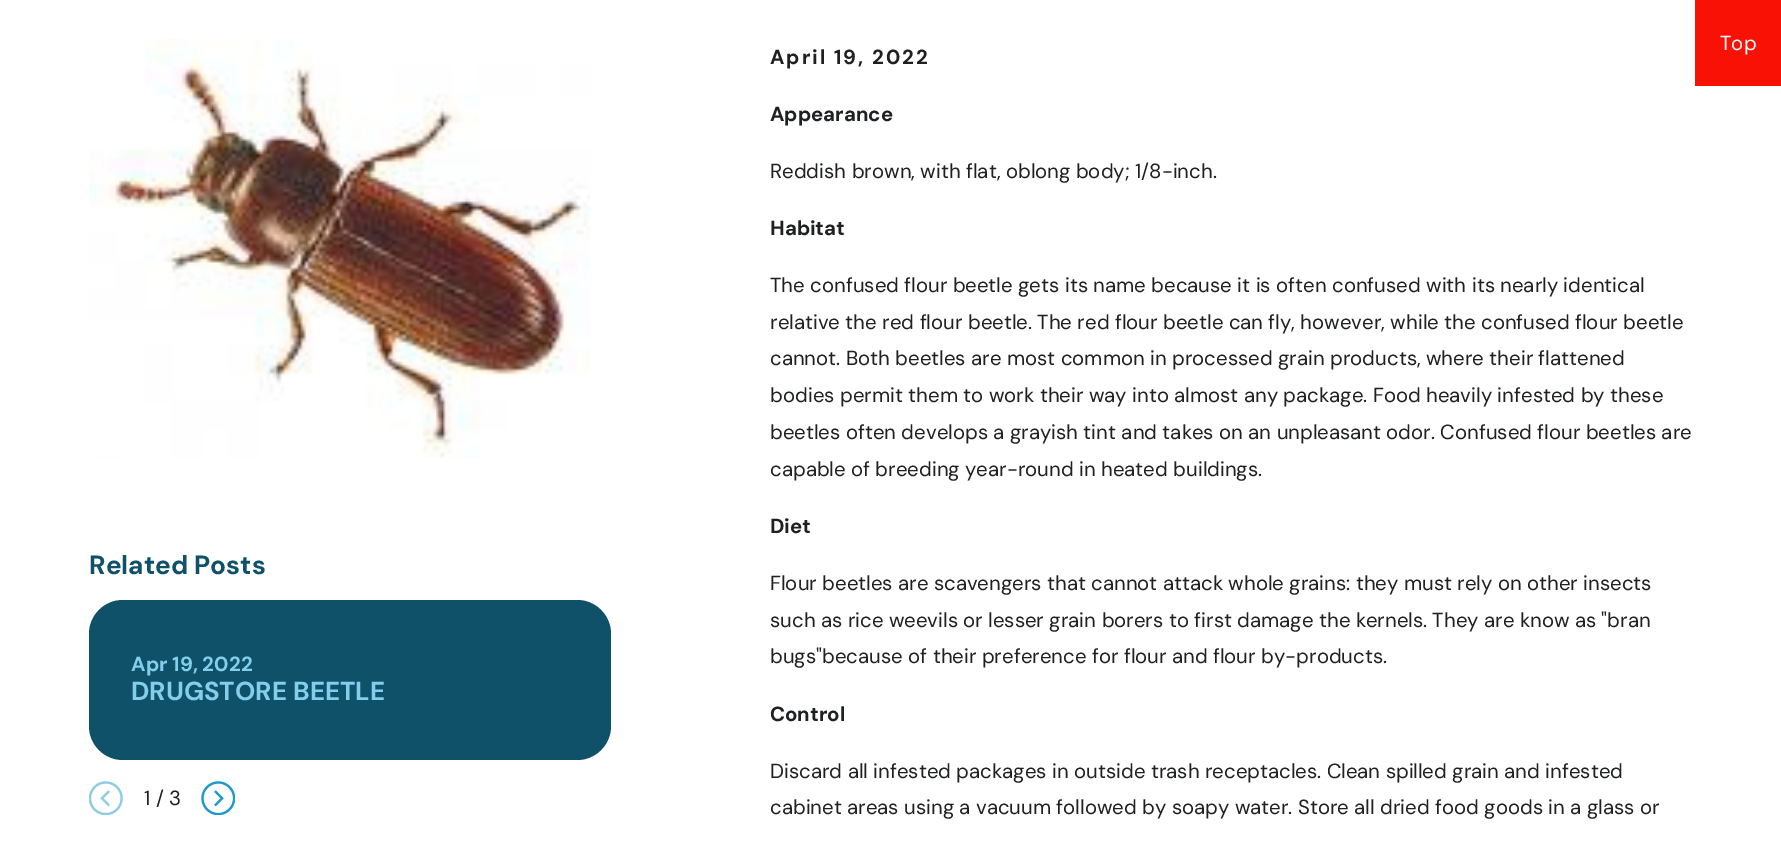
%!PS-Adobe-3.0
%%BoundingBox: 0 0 1781 842
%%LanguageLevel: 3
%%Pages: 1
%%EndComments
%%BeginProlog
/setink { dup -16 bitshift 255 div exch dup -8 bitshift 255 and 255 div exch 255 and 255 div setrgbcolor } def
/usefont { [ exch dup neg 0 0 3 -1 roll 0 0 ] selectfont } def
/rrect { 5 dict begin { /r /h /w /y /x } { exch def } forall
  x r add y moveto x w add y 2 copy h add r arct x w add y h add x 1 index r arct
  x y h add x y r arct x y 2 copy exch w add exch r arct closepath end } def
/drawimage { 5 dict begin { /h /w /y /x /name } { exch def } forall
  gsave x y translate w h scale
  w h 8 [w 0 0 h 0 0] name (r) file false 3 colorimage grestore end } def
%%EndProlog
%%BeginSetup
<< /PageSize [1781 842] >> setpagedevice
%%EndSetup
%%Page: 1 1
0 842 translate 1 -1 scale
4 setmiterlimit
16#FFFFFF setink
0 0 1781 842 rectfill
16#FA1105 setink
1695 0 86 86 rectfill
/DMSans-Regular 20.4 usefont
16#FFFFFF setink
1720 50 moveto (Top) show
(img1.raw) 89 39 502 420 drawimage
/DMSans-Bold 26.25 usefont
16#10516A setink
89 574 moveto (Related Posts) show
89 600 522 160 34 rrect fill
/DMSans-Bold 20.5 usefont
16#83CEEC setink
131 671 moveto (Apr 19, 2022) show
/DMSans-Bold 26 usefont
131 700 moveto (DRUGSTORE BEETLE) show
(img2.raw) 89 781 34 34 drawimage
/DMSans-Regular 20.4 usefont
16#1F2021 setink
144 805 moveto (1 / 3) show
(img3.raw) 201 781 34 34 drawimage
/DMSans-Bold 20.4 usefont
770 64 moveto 2 0 (April 19, 2022) ashow
770 121 moveto (Appearance) show
/DMSans-Regular 20.4 usefont
770 178 moveto (Reddish brown, with flat, oblong body; 1/8-inch.) show
/DMSans-Bold 20.4 usefont
770 235 moveto (Habitat) show
/DMSans-Regular 20.4 usefont
[
    [(The confused flour beetle gets its name because it is often confused with its nearly identical) 770 292]
    [(relative the red flour beetle. The red flour beetle can fly, however, while the confused flour beetle) 770 329]
    [(cannot. Both beetles are most common in processed grain products, where their flattened) 770 365]
    [(bodies permit them to work their way into almost any package. Food heavily infested by these) 770 402]
    [(beetles often develops a grayish tint and takes on an unpleasant odor. Confused flour beetles are) 770 439]
    [(capable of breeding year-round in heated buildings.) 770 476]
] { aload pop moveto show } forall
/DMSans-Bold 20.4 usefont
770 533 moveto (Diet) show
/DMSans-Regular 20.4 usefont
[
    [(Flour beetles are scavengers that cannot attack whole grains: they must rely on other insects) 770 590]
    [(such as rice weevils or lesser grain borers to first damage the kernels. They are know as "bran) 770 627]
    [(bugs"because of their preference for flour and flour by-products.) 770 663]
] { aload pop moveto show } forall
/DMSans-Bold 20.4 usefont
770 721 moveto (Control) show
/DMSans-Regular 20.4 usefont
770 778 moveto (Discard all infested packages in outside trash receptacles. Clean spilled grain and infested) show
770 814 moveto (cabinet areas using a vacuum followed by soapy water. Store all dried food goods in a glass or) show
showpage
%%EOF
